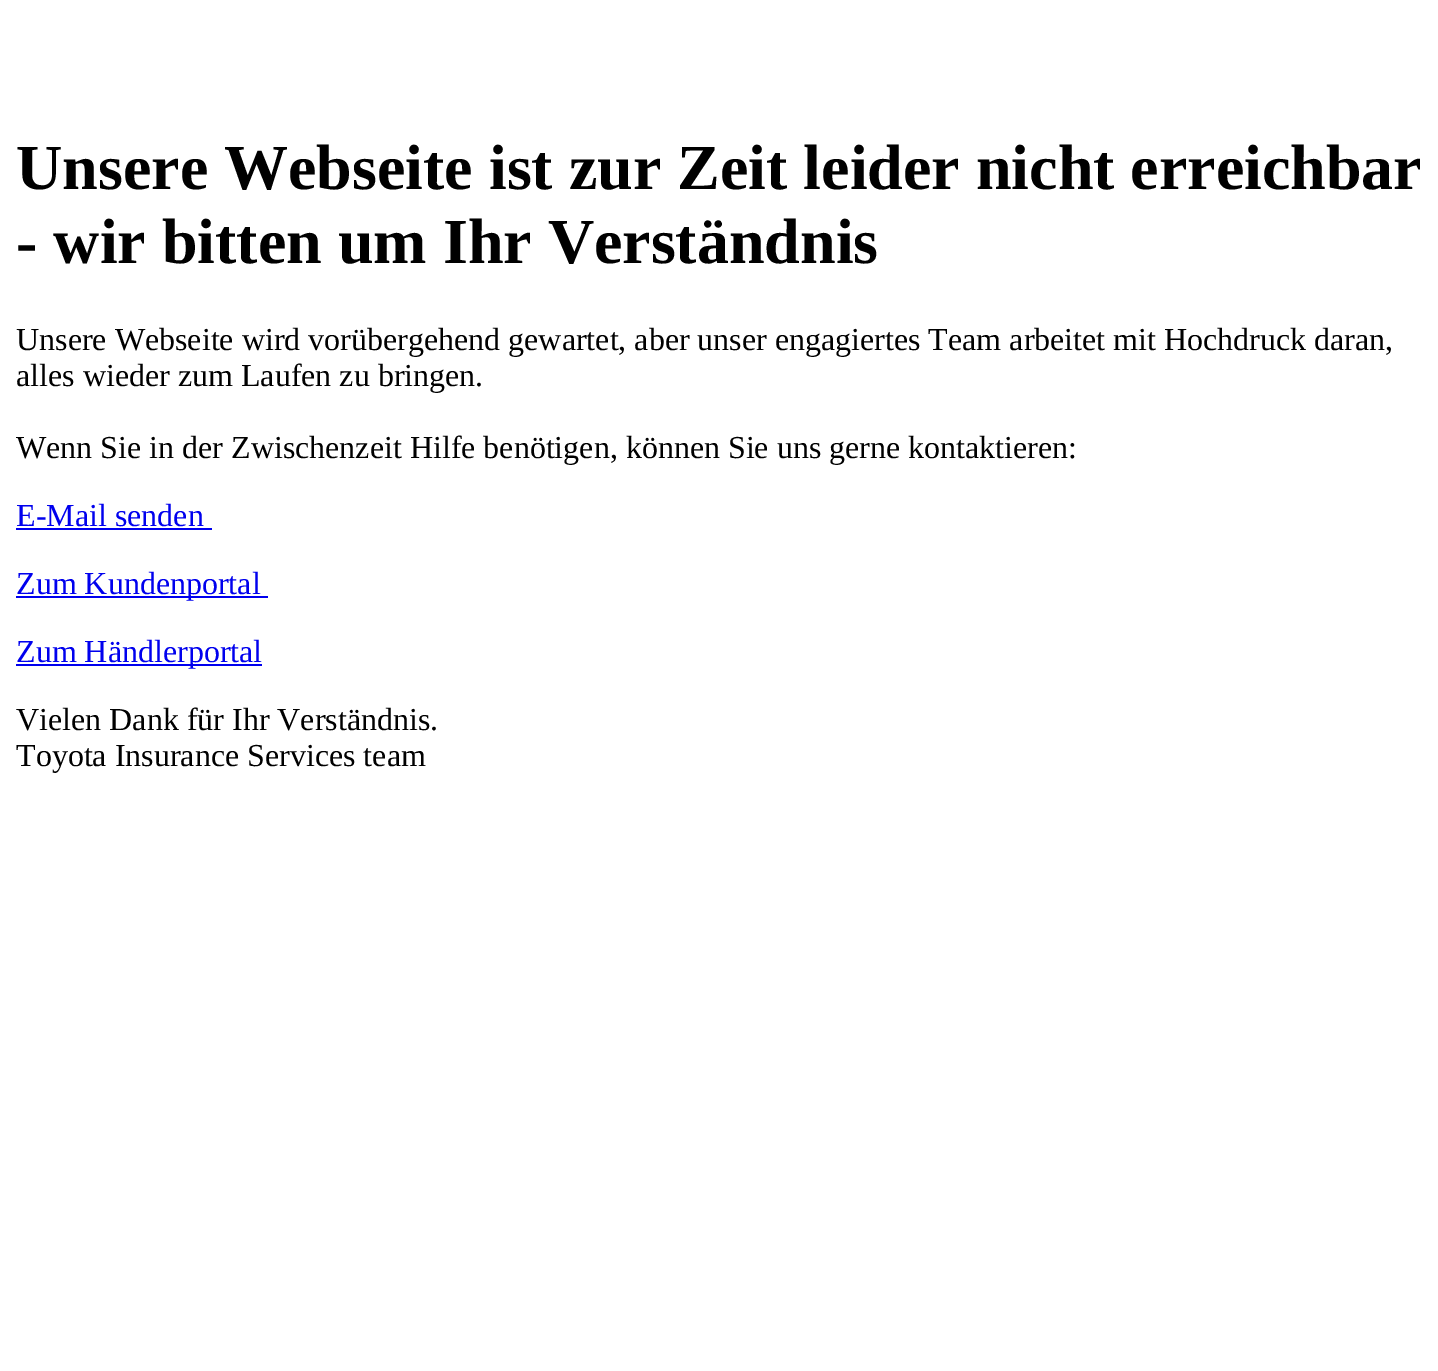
%!PS-Adobe-3.0
%%BoundingBox: 0 0 1438 1371
%%LanguageLevel: 3
%%Pages: 1
%%EndComments
%%BeginProlog
/setink { dup -16 bitshift 255 div exch dup -8 bitshift 255 and 255 div exch 255 and 255 div setrgbcolor } def
/usefont { [ exch dup neg 0 0 3 -1 roll 0 0 ] selectfont } def
%%EndProlog
%%BeginSetup
<< /PageSize [1438 1371] >> setpagedevice
%%EndSetup
%%Page: 1 1
0 1371 translate 1 -1 scale
4 setmiterlimit
16#FFFFFF setink
0 0 1438 1371 rectfill
/LiberationSerif-Bold 64 usefont
16#000000 setink
16 189 moveto (Unsere Webseite ist zur Zeit leider nicht erreichbar) show
16 263 moveto (- wir bitten um Ihr Verständnis) show
/LiberationSerif-Regular 32 usefont
[
    [(Unsere Webseite wird vorübergehend gewartet, aber unser engagiertes Team arbeitet mit Hochdruck daran,) 16 350]
    [(alles wieder zum Laufen zu bringen.) 16 386]
    [(Wenn Sie in der Zwischenzeit Hilfe benötigen, können Sie uns gerne kontaktieren:) 16 458]
] { aload pop moveto show } forall
16#0000EE setink
16 526 moveto (E-Mail senden) show
16 528 196 2 rectfill
16 596 252 2 rectfill
16 594 moveto (Zum Kundenportal) show
16 664 246 2 rectfill
16 662 moveto (Zum Händlerportal) show
16#000000 setink
16 730 moveto (Vielen Dank für Ihr Verständnis.) show
16 766 moveto (Toyota Insurance Services team) show
showpage
%%EOF
